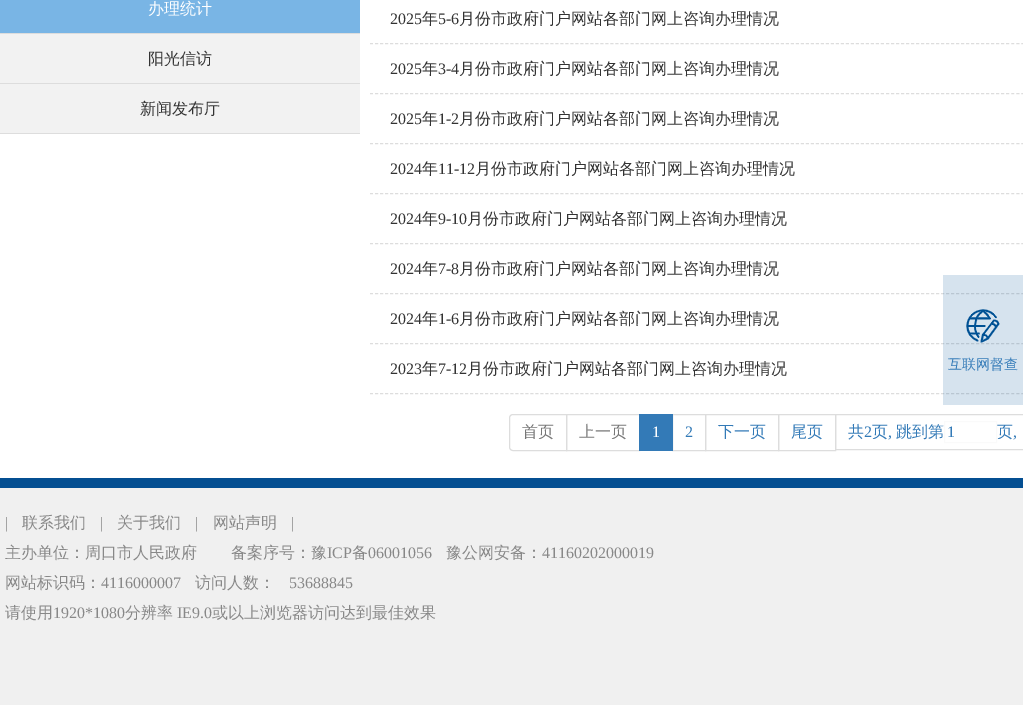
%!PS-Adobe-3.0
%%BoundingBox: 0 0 1023 705
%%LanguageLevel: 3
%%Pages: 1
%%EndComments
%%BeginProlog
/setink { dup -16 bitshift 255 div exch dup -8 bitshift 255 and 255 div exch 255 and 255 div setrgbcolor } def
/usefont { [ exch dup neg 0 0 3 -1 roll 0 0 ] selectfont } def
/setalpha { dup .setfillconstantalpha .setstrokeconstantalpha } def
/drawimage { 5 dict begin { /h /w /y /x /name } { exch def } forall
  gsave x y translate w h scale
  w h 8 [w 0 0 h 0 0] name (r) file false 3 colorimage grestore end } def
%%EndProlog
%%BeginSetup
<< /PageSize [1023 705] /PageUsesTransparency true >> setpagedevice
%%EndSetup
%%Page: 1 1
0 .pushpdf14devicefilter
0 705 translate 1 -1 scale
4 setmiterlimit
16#FFFFFF setink
0 0 1023 705 rectfill
[
    [0 34 360 99 16#F2F2F2]
    [0 0 360 33 16#79B5E5]
    [0 33 360 1 16#DDDDDD]
] { aload pop setink rectfill } forall
/WenQuanYiZenHei-Medium 16 usefont
16#FFFFFF setink
148 14 moveto (办理统计) show
16#DDDDDD setink
0 83 360 1 rectfill
16#333333 setink
148 64 moveto (阳光信访) show
16#DDDDDD setink
0 133 360 1 rectfill
16#333333 setink
140 114 moveto (新闻发布厅) show
16#DDDDDD setink
[3 2.01] 0 setdash
370 43.5 moveto 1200 43.5 lineto stroke
/LiberationSerif-Regular 16 usefont
16#333333 setink
390 24 moveto (2025) show
/WenQuanYiZenHei-Medium 16 usefont
422 24 moveto (年) show
/LiberationSerif-Regular 16 usefont
438 24 moveto (5-6) show
/WenQuanYiZenHei-Medium 16 usefont
459 24 moveto (月份市政府门户网站各部门网上咨询办理情况) show
16#DDDDDD setink
370 93.5 moveto 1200 93.5 lineto stroke
/LiberationSerif-Regular 16 usefont
16#333333 setink
390 74 moveto (2025) show
/WenQuanYiZenHei-Medium 16 usefont
422 74 moveto (年) show
/LiberationSerif-Regular 16 usefont
438 74 moveto (3-4) show
/WenQuanYiZenHei-Medium 16 usefont
459 74 moveto (月份市政府门户网站各部门网上咨询办理情况) show
16#DDDDDD setink
370 143.5 moveto 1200 143.5 lineto stroke
/LiberationSerif-Regular 16 usefont
16#333333 setink
390 124 moveto (2025) show
/WenQuanYiZenHei-Medium 16 usefont
422 124 moveto (年) show
/LiberationSerif-Regular 16 usefont
438 124 moveto (1-2) show
/WenQuanYiZenHei-Medium 16 usefont
459 124 moveto (月份市政府门户网站各部门网上咨询办理情况) show
16#DDDDDD setink
370 193.5 moveto 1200 193.5 lineto stroke
/LiberationSerif-Regular 16 usefont
16#333333 setink
390 174 moveto (2024) show
/WenQuanYiZenHei-Medium 16 usefont
422 174 moveto (年) show
/LiberationSerif-Regular 16 usefont
438 174 moveto (11-12) show
/WenQuanYiZenHei-Medium 16 usefont
475 174 moveto (月份市政府门户网站各部门网上咨询办理情况) show
16#DDDDDD setink
370 243.5 moveto 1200 243.5 lineto stroke
/LiberationSerif-Regular 16 usefont
16#333333 setink
390 224 moveto (2024) show
/WenQuanYiZenHei-Medium 16 usefont
422 224 moveto (年) show
/LiberationSerif-Regular 16 usefont
438 224 moveto (9-10) show
/WenQuanYiZenHei-Medium 16 usefont
467 224 moveto (月份市政府门户网站各部门网上咨询办理情况) show
16#DDDDDD setink
370 293.5 moveto 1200 293.5 lineto stroke
/LiberationSerif-Regular 16 usefont
16#333333 setink
390 274 moveto (2024) show
/WenQuanYiZenHei-Medium 16 usefont
422 274 moveto (年) show
/LiberationSerif-Regular 16 usefont
438 274 moveto (7-8) show
/WenQuanYiZenHei-Medium 16 usefont
459 274 moveto (月份市政府门户网站各部门网上咨询办理情况) show
16#DDDDDD setink
370 343.5 moveto 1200 343.5 lineto stroke
/LiberationSerif-Regular 16 usefont
16#333333 setink
390 324 moveto (2024) show
/WenQuanYiZenHei-Medium 16 usefont
422 324 moveto (年) show
/LiberationSerif-Regular 16 usefont
438 324 moveto (1-6) show
/WenQuanYiZenHei-Medium 16 usefont
459 324 moveto (月份市政府门户网站各部门网上咨询办理情况) show
16#DDDDDD setink
370 393.5 moveto 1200 393.5 lineto stroke
/LiberationSerif-Regular 16 usefont
16#333333 setink
390 374 moveto (2023) show
/WenQuanYiZenHei-Medium 16 usefont
422 374 moveto (年) show
/LiberationSerif-Regular 16 usefont
438 374 moveto (7-12) show
/WenQuanYiZenHei-Medium 16 usefont
467 374 moveto (月份市政府门户网站各部门网上咨询办理情况) show
16#DDDDDD setink
[] 0 setdash
513 414.5 moveto 566.5 414.5 lineto 566.5 450.5 lineto 513 450.5 lineto 511 450.5 509.5 449 509.5 447 curveto 509.5 418 lineto 509.5 416 511 414.5 513 414.5 curveto closepath stroke
16#777777 setink
522 437 moveto (首页) show
16#DDDDDD setink
566.5 414.5 73 36 rectstroke
16#777777 setink
579 437 moveto (上一页) show
16#DDDDDD setink
672.5 414.5 33 36 rectstroke
16#337AB7 setink
639 414 34 37 rectfill
/LiberationSerif-Regular 16 usefont
16#FFFFFF setink
652 437 moveto (1) show
16#337AB7 setink
685 437 moveto (2) show
16#DDDDDD setink
705.5 414.5 73 36 rectstroke
/WenQuanYiZenHei-Medium 16 usefont
16#337AB7 setink
718 437 moveto (下一页) show
16#DDDDDD setink
778.5 414.5 57 36 rectstroke
16#337AB7 setink
791 437 moveto (尾页) show
16#DDDDDD setink
835.5 414.5 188 35 rectstroke
16#337AB7 setink
848 437 moveto (共) show
/LiberationSerif-Regular 16 usefont
864 437 moveto (2) show
/WenQuanYiZenHei-Medium 16 usefont
872 437 moveto (页) show
896 437 moveto (跳到第) show
16#FAFAFA setink
944.5 421.5 52 21 rectstroke
/LiberationSerif-Regular 16 usefont
16#337AB7 setink
947 437 moveto (1) show
/WenQuanYiZenHei-Medium 16 usefont
997 437 moveto (页) show
/LiberationSerif-Regular 16 usefont
888 437 moveto (,) show
1013 437 moveto (,) show
0.16 setalpha
16#005195 setink
943 275 80 130 rectfill
1 setalpha
(img1.raw) 966 309 34 34 drawimage
/WenQuanYiZenHei-Medium 14 usefont
16#337AB7 setink
948 369 moveto (互联网督查) show
16#F0F0F0 setink
0 488 1023 217 rectfill
16#044F92 setink
0 478 1023 10 rectfill
/LiberationSerif-Regular 16 usefont
16#888888 setink
5 528 moveto (|) show
/WenQuanYiZenHei-Medium 16 usefont
22 528 moveto (联系我们) show
/LiberationSerif-Regular 16 usefont
100 528 moveto (|) show
/WenQuanYiZenHei-Medium 16 usefont
117 528 moveto (关于我们) show
/LiberationSerif-Regular 16 usefont
195 528 moveto (|) show
/WenQuanYiZenHei-Medium 16 usefont
213 528 moveto (网站声明) show
/LiberationSerif-Regular 16 usefont
291 528 moveto (|) show
/WenQuanYiZenHei-Medium 16 usefont
5 558 moveto (主办单位：周口市人民政府) show
231 558 moveto (备案序号：豫) show
/LiberationSerif-Regular 16 usefont
327 558 moveto (ICP) show
/WenQuanYiZenHei-Medium 16 usefont
352 558 moveto (备) show
/LiberationSerif-Regular 16 usefont
368 558 moveto (06001056) show
/WenQuanYiZenHei-Medium 16 usefont
446 558 moveto (豫公网安备：) show
/LiberationSerif-Regular 16 usefont
542 558 moveto (41160202000019) show
/WenQuanYiZenHei-Medium 16 usefont
5 588 moveto (网站标识码：) show
/LiberationSerif-Regular 16 usefont
101 588 moveto (4116000007) show
/WenQuanYiZenHei-Medium 16 usefont
195 588 moveto (访问人数：) show
/LiberationSerif-Regular 16 usefont
289 588 moveto (53688845) show
/WenQuanYiZenHei-Medium 16 usefont
5 618 moveto (请使用) show
/LiberationSerif-Regular 16 usefont
53 618 moveto (1920*1080) show
/WenQuanYiZenHei-Medium 16 usefont
125 618 moveto (分辨率) show
/LiberationSerif-Regular 16 usefont
177 618 moveto (IE9.0) show
/WenQuanYiZenHei-Medium 16 usefont
212 618 moveto (或以上浏览器访问达到最佳效果) show
.poppdf14devicefilter showpage
%%EOF
